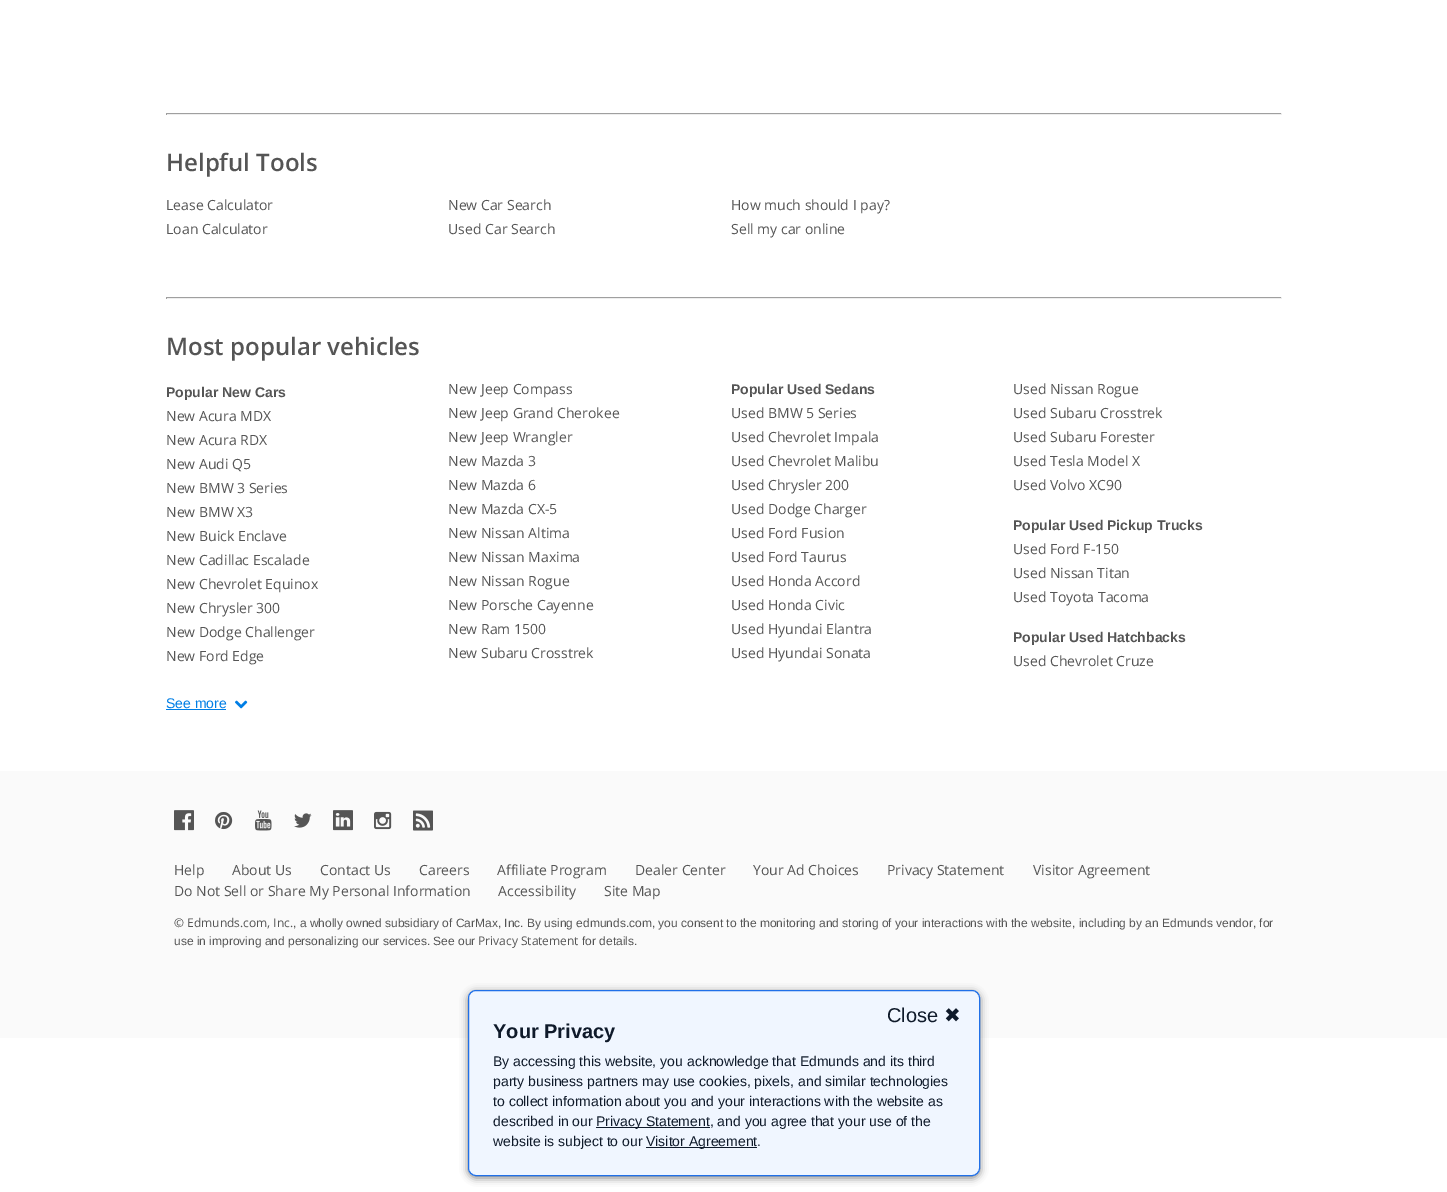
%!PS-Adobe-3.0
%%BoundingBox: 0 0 1447 1192
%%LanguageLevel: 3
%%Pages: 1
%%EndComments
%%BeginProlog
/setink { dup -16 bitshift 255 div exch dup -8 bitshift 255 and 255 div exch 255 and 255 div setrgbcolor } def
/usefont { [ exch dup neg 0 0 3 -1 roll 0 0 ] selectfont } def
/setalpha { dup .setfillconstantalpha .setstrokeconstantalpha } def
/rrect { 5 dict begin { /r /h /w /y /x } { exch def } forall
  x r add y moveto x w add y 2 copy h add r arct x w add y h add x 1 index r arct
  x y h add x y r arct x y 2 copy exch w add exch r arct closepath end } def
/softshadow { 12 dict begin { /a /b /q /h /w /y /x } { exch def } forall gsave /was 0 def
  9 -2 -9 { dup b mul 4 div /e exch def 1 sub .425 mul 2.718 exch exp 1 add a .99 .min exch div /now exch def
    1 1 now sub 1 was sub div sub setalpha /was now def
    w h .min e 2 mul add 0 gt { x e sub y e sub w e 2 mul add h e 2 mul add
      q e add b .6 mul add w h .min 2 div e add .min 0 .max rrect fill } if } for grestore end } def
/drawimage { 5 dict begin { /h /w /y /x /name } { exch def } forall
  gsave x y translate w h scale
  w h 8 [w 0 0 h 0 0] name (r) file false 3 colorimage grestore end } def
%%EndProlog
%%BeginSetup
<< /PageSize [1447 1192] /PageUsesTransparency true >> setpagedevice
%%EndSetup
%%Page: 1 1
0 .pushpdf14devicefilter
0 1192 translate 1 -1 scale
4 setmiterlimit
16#FFFFFF setink
0 0 1447 1192 rectfill
[
    [166 113 1116 1 16#9F9F9F]
    [1281 113 1 2 16#EEEEEE]
    [166 114 1116 1 16#EEEEEE]
    [166 113 1 2 16#9F9F9F]
] { aload pop setink rectfill } forall
/OpenSans-SemiBold 24 usefont
16#555555 setink
166 171 moveto (Helpful Tools) show
/OpenSans-Regular 14 usefont
[
    [(Lease Calculator) 166 210]
    [(New Car Search) 448 210]
    [(How much should I pay?) 731 210]
    [(Loan Calculator) 166 234]
    [(Used Car Search) 448 234]
    [(Sell my car online) 731 234]
] { aload pop moveto show } forall
[
    [166 297 1116 1 16#9F9F9F]
    [1281 297 1 2 16#EEEEEE]
    [166 298 1116 1 16#EEEEEE]
    [166 297 1 2 16#9F9F9F]
] { aload pop setink rectfill } forall
/OpenSans-SemiBold 24 usefont
16#555555 setink
166 355 moveto (Most popular vehicles) show
/OpenSans-Regular 14 usefont
[
    [(New Jeep Compass) 448 394]
    [(New Acura MDX) 166 421]
    [(New Jeep Grand Cherokee) 448 418]
    [(New Acura RDX) 166 445]
    [(New Jeep Wrangler) 448 442]
    [(New Audi Q5) 166 469]
    [(New Mazda 3) 448 466]
    [(New BMW 3 Series) 166 493]
    [(New Mazda 6) 448 490]
    [(New BMW X3) 166 517]
    [(New Mazda CX-5) 448 514]
    [(New Buick Enclave) 166 541]
    [(New Nissan Altima) 448 538]
    [(New Cadillac Escalade) 166 565]
    [(New Nissan Maxima) 448 562]
    [(New Chevrolet Equinox) 166 589]
    [(New Nissan Rogue) 448 586]
    [(New Chrysler 300) 166 613]
    [(New Porsche Cayenne) 448 610]
    [(New Dodge Challenger) 166 637]
    [(New Ram 1500) 448 634]
    [(New Ford Edge) 166 661]
    [(New Subaru Crosstrek) 448 658]
] { aload pop moveto show } forall
/LiberationSans-Bold 14 usefont
731 394 moveto (Popular Used Sedans) show
/OpenSans-Regular 14 usefont
[
    [(Used Nissan Rogue) 1013 394]
    [(Used Subaru Crosstrek) 1013 418]
    [(Used Subaru Forester) 1013 442]
    [(Used Tesla Model X) 1013 466]
    [(Used Volvo XC90) 1013 490]
] { aload pop moveto show } forall
/LiberationSans-Bold 14 usefont
166 397 moveto (Popular New Cars) show
/OpenSans-Regular 14 usefont
[
    [(Used BMW 5 Series) 731 418]
    [(Used Chevrolet Impala) 731 442]
    [(Used Chevrolet Malibu) 731 466]
    [(Used Chrysler 200) 731 490]
    [(Used Dodge Charger) 731 514]
    [(Used Ford Fusion) 731 538]
    [(Used Ford Taurus) 731 562]
    [(Used Honda Accord) 731 586]
    [(Used Honda Civic) 731 610]
    [(Used Hyundai Elantra) 731 634]
    [(Used Hyundai Sonata) 731 658]
] { aload pop moveto show } forall
/LiberationSans-Bold 14 usefont
1013 530 moveto (Popular Used Pickup Trucks) show
/OpenSans-Regular 14 usefont
[
    [(Used Ford F-150) 1013 554]
    [(Used Nissan Titan) 1013 578]
    [(Used Toyota Tacoma) 1013 602]
] { aload pop moveto show } forall
/LiberationSans-Bold 14 usefont
1013 642 moveto (Popular Used Hatchbacks) show
/OpenSans-Regular 14 usefont
1013 666 moveto (Used Chevrolet Cruze) show
/LiberationSans-Regular 14 usefont
16#007EE5 setink
166 708 moveto (See more) show
166 709 60 1 rectfill
(img1.raw) 235 700 13 9 drawimage
16#FAFAFA setink
0 771 1447 267 rectfill
(img2.raw) 174 810 20 21 drawimage
(img3.raw) 215 812 18 18 drawimage
(img4.raw) 255 810 17 21 drawimage
(img5.raw) 294 813 18 15 drawimage
(img6.raw) 333 810 20 21 drawimage
(img7.raw) 374 811 18 19 drawimage
(img8.raw) 413 810 20 21 drawimage
/OpenSans-Regular 14 usefont
16#555555 setink
[
    [(Help) 174 875]
    [(About Us) 232 875]
    [(Contact Us) 320 875]
    [(Careers) 419 875]
    [(Affiliate Program) 497 875]
    [(Dealer Center) 635 875]
    [(Your Ad Choices) 753 875]
    [(Privacy Statement) 887 875]
    [(Visitor Agreement) 1033 875]
    [(Do Not Sell or Share My Personal Information) 174 896]
    [(Accessibility) 498 896]
    [(Site Map) 604 896]
] { aload pop moveto show } forall
/OpenSans-Regular 12 usefont
174 927 moveto (© Edmunds.com, Inc.) show
/LiberationSans-Regular 12 usefont
293 927 moveto (, a wholly owned subsidiary of CarMax, Inc. By using edmunds.com, you consent to the monitoring and storing of your interactions with the website, including by an Edmunds vendor, for) show
174 945 moveto (use in improving and personalizing our services. See our) show
/OpenSans-Regular 12 usefont
478 945 moveto (Privacy Statement) show
/LiberationSans-Regular 12 usefont
582 945 moveto (for details.) show
16#000000 setink
468 992 512 186 8 4 0.5 softshadow
16#F0F6FF setink
468.5 990.5 511 185 7.5 rrect gsave fill grestore
16#2070E8 setink
stroke
/LiberationSans-Regular 20 usefont
16#0F1A2A setink
887 1022 moveto (Close) show
/DejaVuSans-Regular 20 usefont
944 1022 moveto (✖) show
/LiberationSans-Bold 20 usefont
493 1038 moveto (Your Privacy) show
/LiberationSans-Regular 14 usefont
[
    [(By accessing this website, you acknowledge that Edmunds and its third) 493 1066]
    [(party business partners may use cookies, pixels, and similar technologies) 493 1086]
    [(to collect information about you and your interactions with the website as) 493 1106]
    [(described in our) 493 1126]
] { aload pop moveto show } forall
596 1127 114 1 rectfill
596 1126 moveto (Privacy Statement, and you agree that your use of the) show
493 1146 moveto (website is subject to our) show
646 1147 111 1 rectfill
646 1146 moveto (Visitor Agreement.) show
.poppdf14devicefilter showpage
%%EOF
